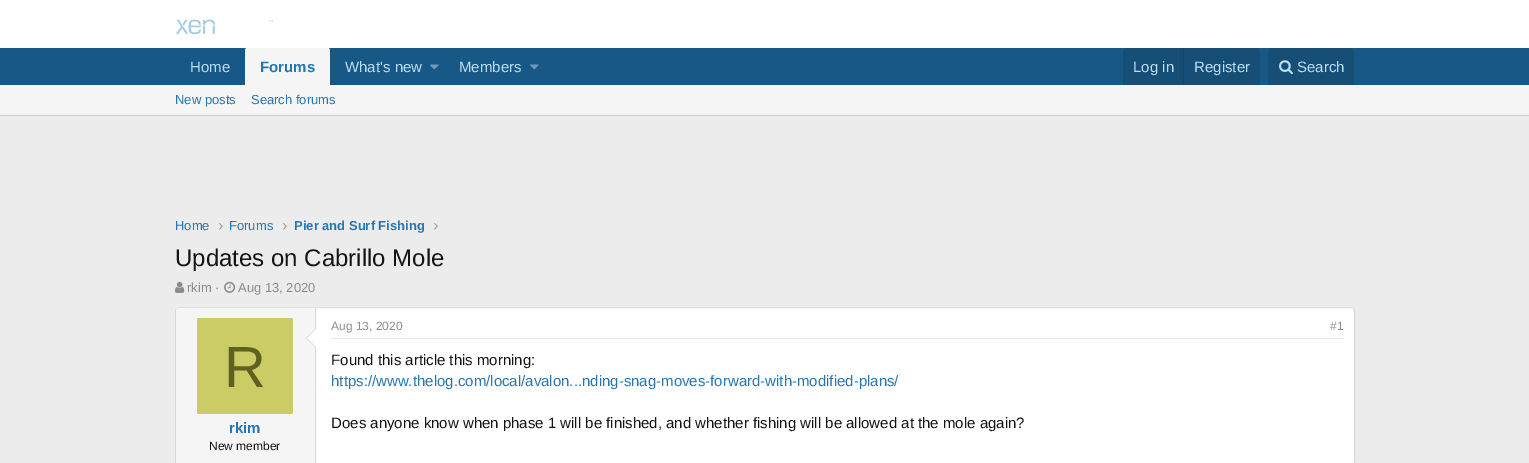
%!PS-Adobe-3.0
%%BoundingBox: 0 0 1529 463
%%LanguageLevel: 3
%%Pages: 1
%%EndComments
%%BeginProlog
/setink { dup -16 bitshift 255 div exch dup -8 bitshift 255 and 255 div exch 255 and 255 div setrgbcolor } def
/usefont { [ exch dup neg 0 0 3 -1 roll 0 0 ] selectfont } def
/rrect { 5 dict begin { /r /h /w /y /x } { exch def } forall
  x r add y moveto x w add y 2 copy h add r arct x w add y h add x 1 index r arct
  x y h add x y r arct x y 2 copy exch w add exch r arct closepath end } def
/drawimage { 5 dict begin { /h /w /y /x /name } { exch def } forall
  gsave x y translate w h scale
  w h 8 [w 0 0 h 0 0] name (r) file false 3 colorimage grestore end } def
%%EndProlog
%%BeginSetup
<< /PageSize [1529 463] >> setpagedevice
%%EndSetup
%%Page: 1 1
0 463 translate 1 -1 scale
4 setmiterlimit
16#ECECEC setink
0 0 1529 463 rectfill
16#FEFEFE setink
0 0 1529 48 rectfill
(img1.raw) 176 19 97 15 drawimage
16#185886 setink
0 48 1529 37 rectfill
/LiberationSans-Regular 15 usefont
16#BCDEF5 setink
190 72 moveto (Home) show
16#F5F5F5 setink
247 48 moveto 328 48 lineto 329 48 330 49 330 50 curveto 330 85 lineto 245 85 lineto 245 50 lineto 245 49 246 48 247 48 curveto closepath fill
/LiberationSans-Bold 15 usefont
16#2577B1 setink
260 72 moveto (Forums) show
/LiberationSans-Regular 15 usefont
16#BCDEF5 setink
345 72 moveto (What's new) show
(img2.raw) 430 64 9 6 drawimage
459 72 moveto (Members) show
(img2.raw) 530 64 9 6 drawimage
16#174E75 setink
1127 48 moveto 1256 48 lineto 1258 48 1260 50 1260 52 curveto 1260 85 lineto 1123 85 lineto 1123 52 lineto 1123 50 1125 48 1127 48 curveto closepath fill
16#BCDEF5 setink
1133 72 moveto (Log in) show
16#174566 setink
1183 48 1 37 rectfill
16#BCDEF5 setink
1194 72 moveto (Register) show
16#174E75 setink
1272 48 moveto 1350 48 lineto 1352 48 1354 50 1354 52 curveto 1354 85 lineto 1268 85 lineto 1268 52 lineto 1268 50 1270 48 1272 48 curveto closepath fill
(img3.raw) 1279 60 14 15 drawimage
16#BCDEF5 setink
1297 72 moveto (Search) show
16#F5F5F5 setink
0 85 1529 30 rectfill
16#CBCBCB setink
0 115 1529 1 rectfill
/LiberationSans-Regular 13 usefont
16#2577B1 setink
[
    [(New posts) 175 104]
    [(Search forums) 251 104]
    [(Home) 175 230]
] { aload pop moveto show } forall
(img4.raw) 219 223 4 7 drawimage
229 230 moveto (Forums) show
(img4.raw) 283 223 4 7 drawimage
/LiberationSans-Bold 13 usefont
294 230 moveto (Pier and Surf Fishing) show
(img4.raw) 434 223 4 7 drawimage
/LiberationSans-Regular 24 usefont
16#141414 setink
175 266 moveto (Updates on Cabrillo Mole) show
(img5.raw) 175 281 10 12 drawimage
/LiberationSans-Regular 13 usefont
16#8C8C8C setink
187 292 moveto (rkim ·) show
(img6.raw) 224 281 12 12 drawimage
238 292 moveto (Aug 13, 2020) show
16#FEFEFE setink
175 307 1180 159 4 rrect fill
16#DFDFDF setink
176.5 308.5 moveto 179 307.5 lineto 1351 307.5 lineto 1353.5 308.5 lineto stroke
16#D8D8D8 setink
1353.5 308.5 moveto 1354 309 1354.5 310 1354.5 311 curveto 1354.5 462 lineto 1354.5 463 1354 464 1353.5 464.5 curveto stroke
176.5 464.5 moveto 176 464 175.5 463 175.5 462 curveto 175.5 311 lineto 175.5 310 176 309 176.5 308.5 curveto stroke
16#F5F5F5 setink
179 308 moveto 316 308 lineto 316 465 lineto 179 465 lineto 177.5 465 176 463.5 176 462 curveto 176 311 lineto 176 309.5 177.5 308 179 308 curveto closepath fill
16#D8D8D8 setink
315 308 1 155 rectfill
316 328 moveto 316 348 lineto 306 338 lineto closepath fill
16#FEFEFE setink
316 329 moveto 316 347 lineto 307 338 lineto closepath fill
16#CCCC66 setink
197 318 96 96 2 rrect fill
/LiberationSans-Regular 58 usefont
16#606020 setink
224 387 moveto (R) show
/LiberationSans-Bold 15 usefont
16#2577B1 setink
229 433 moveto (rkim) show
/LiberationSans-Regular 12 usefont
16#141414 setink
209 450 moveto (New member) show
16#E7E7E7 setink
331 338 1013 1 rectfill
16#8C8C8C setink
331 330 moveto (Aug 13, 2020) show
1330 330 moveto (#1) show
/LiberationSans-Regular 15 usefont
16#141414 setink
331 365 moveto (Found this article this morning:) show
16#2577B1 setink
331 386 moveto (https://www.thelog.com/local/avalon...nding-snag-moves-forward-with-modified-plans/) show
16#141414 setink
331 428 moveto (Does anyone know when phase 1 will be finished, and whether fishing will be allowed at the mole again?) show
showpage
%%EOF
